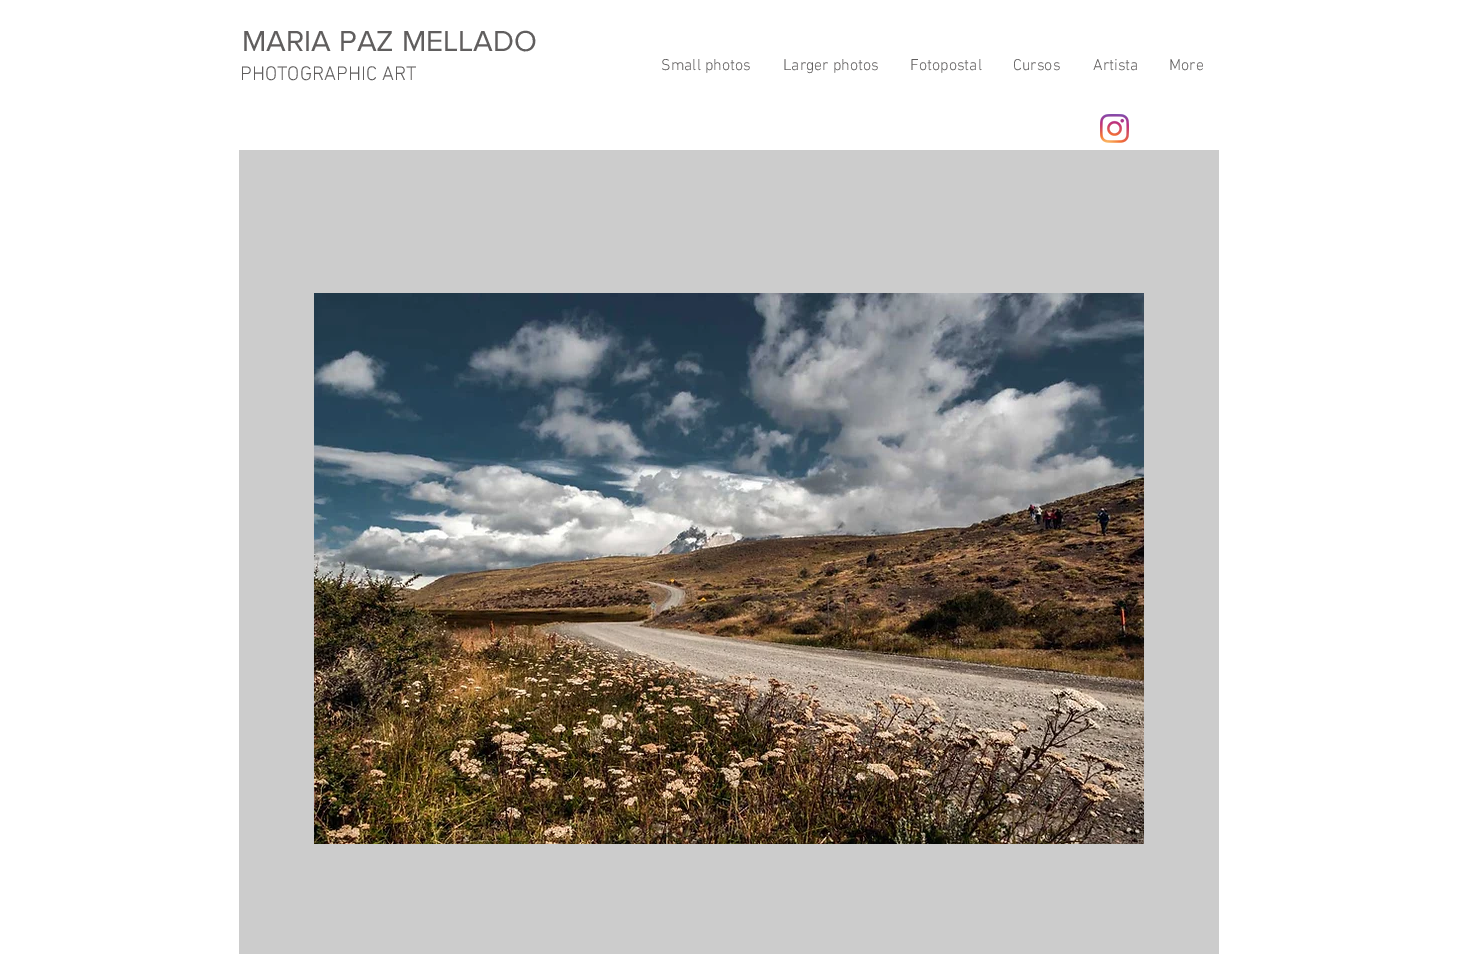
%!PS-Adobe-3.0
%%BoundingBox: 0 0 1457 954
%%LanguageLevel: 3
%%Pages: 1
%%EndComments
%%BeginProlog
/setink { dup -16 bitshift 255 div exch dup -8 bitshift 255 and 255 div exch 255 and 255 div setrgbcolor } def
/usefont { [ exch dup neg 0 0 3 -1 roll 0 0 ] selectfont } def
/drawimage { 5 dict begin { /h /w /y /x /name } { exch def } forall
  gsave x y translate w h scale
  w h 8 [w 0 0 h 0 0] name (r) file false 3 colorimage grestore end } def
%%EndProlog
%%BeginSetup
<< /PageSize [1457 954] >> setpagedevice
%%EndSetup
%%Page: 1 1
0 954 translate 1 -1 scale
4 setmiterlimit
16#FFFFFF setink
0 0 1457 954 rectfill
/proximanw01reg-Regular 30 usefont
16#605E5E setink
242 51 moveto (MARIA PAZ MELLADO) show
/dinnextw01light-Light 20 usefont
240 80 moveto (PHOTOGRAPHIC ART) show
/dinnextw01light-Light 16 usefont
[
    [(Small photos) 661 70]
    [(Larger photos) 783 70]
    [(Fotopostal) 910 70]
    [(Cursos) 1013 70]
    [(Artista) 1093 70]
    [(More) 1169 70]
] { aload pop moveto show } forall
(img1.raw) 1100 114 29 29 drawimage
16#CCCCCC setink
239 150 980 804 rectfill
(img2.raw) 314 293 830 551 drawimage
showpage
%%EOF
